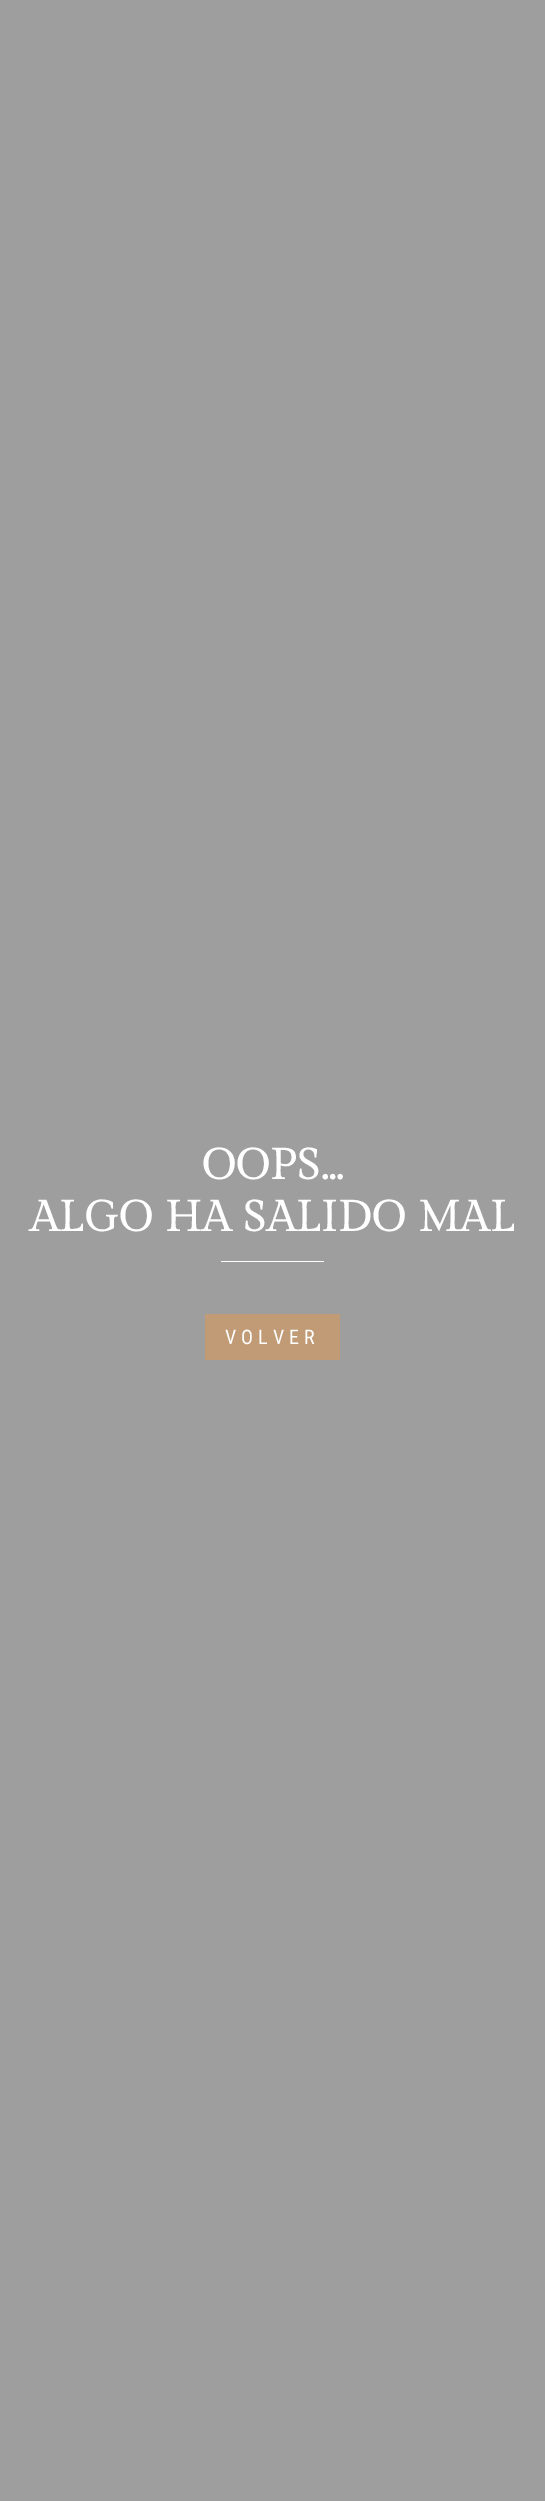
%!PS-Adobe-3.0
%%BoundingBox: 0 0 545 2501
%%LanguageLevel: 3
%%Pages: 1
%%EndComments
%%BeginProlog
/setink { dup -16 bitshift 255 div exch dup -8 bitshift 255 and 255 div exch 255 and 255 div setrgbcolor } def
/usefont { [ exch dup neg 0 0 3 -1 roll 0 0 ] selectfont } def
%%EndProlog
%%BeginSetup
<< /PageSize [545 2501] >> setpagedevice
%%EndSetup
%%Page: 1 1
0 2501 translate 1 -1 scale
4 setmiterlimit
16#9E9E9E setink
0 0 545 2501 rectfill
/GildaDisplay-Bold 43 usefont
16#FFFFFF setink
202 1179 moveto 1 0 (OOPS…) ashow
30 1231 moveto 1 0 (ALGO HA SALIDO MAL) ashow
221 1261 103 1 rectfill
16#C19B76 setink
205 1314 135 46 rectfill
/RobotoCondensed-Regular 20 usefont
16#FFFFFF setink
225 1344 moveto 5 0 (VOLVER) ashow
showpage
%%EOF
